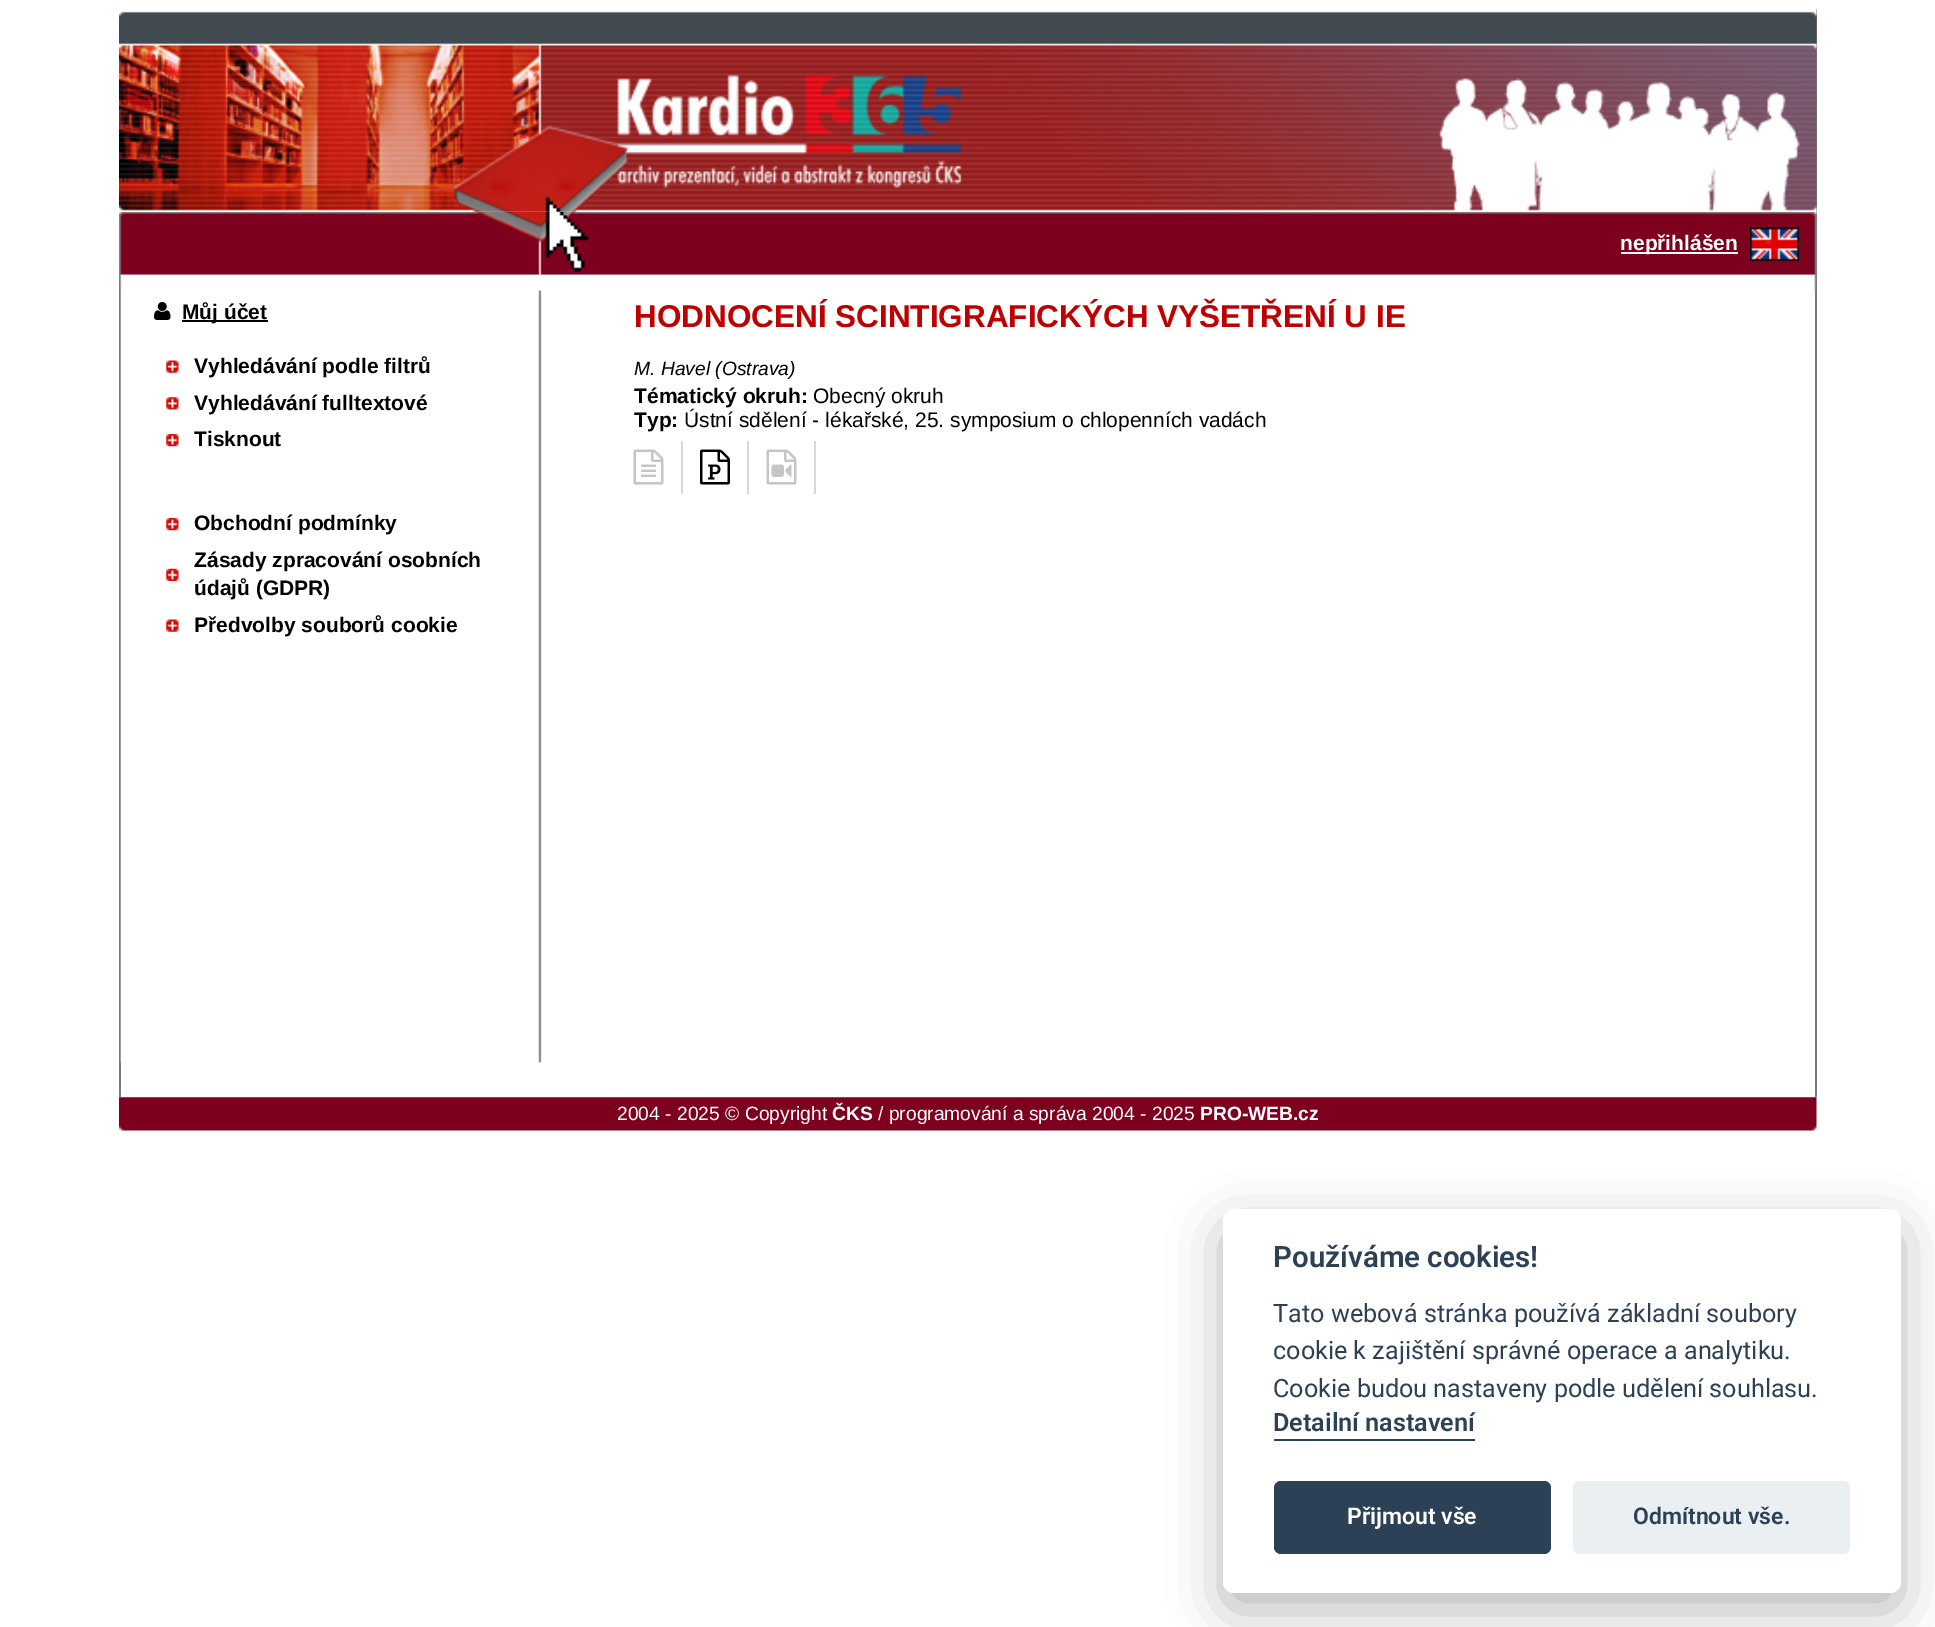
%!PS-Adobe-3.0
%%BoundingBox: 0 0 1935 1627
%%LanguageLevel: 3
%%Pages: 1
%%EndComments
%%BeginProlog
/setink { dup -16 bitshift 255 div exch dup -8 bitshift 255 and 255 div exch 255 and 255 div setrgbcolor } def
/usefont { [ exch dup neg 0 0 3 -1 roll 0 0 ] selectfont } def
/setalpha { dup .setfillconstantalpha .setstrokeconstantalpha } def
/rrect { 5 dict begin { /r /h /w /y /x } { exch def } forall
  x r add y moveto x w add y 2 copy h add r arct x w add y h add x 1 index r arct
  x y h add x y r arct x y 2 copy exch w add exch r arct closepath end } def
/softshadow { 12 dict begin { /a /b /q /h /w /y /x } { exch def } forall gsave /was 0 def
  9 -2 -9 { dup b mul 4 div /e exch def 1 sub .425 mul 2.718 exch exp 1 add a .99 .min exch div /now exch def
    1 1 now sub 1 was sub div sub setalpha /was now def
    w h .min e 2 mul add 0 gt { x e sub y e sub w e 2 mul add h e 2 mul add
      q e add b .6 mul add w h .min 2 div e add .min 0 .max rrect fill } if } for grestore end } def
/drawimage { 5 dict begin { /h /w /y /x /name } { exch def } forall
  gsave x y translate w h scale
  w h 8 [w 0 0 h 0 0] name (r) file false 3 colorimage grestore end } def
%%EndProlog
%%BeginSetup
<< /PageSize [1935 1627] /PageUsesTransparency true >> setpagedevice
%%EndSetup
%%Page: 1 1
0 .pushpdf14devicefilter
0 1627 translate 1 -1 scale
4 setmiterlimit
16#FFFFFF setink
0 0 1935 1627 rectfill
16#7D7D7D setink
1815 9 2 1088 rectfill
119 211 2 886 rectfill
(img2.raw) 120 211 422 852 drawimage
(img3.raw) 119 211 1698 64 drawimage
(img1.raw) 119 9 1698 203 drawimage
16#FFFFFF setink
1621 252 117 2 rectfill
/LiberationSans-Bold 21 usefont
1620 250 moveto (nepřihlášen) show
(img4.raw) 1750 227 49 34 drawimage
(img5.raw) 120 274 1696 17 drawimage
(img6.raw) 154 302 17 18 drawimage
16#000000 setink
182 320 86 2 rectfill
182 319 moveto (Můj účet) show
(img7.raw) 166 360 13 13 drawimage
194 373 moveto (Vyhledávání podle filtrů) show
(img8.raw) 166 397 13 13 drawimage
194 410 moveto (Vyhledávání fulltextové) show
(img9.raw) 166 434 13 13 drawimage
194 446 moveto (Tisknout) show
(img9.raw) 166 518 13 13 drawimage
194 530 moveto (Obchodní podmínky) show
(img10.raw) 166 568 13 13 drawimage
194 567 moveto (Zásady zpracování osobních) show
194 595 moveto (údajů \(GDPR\)) show
(img7.raw) 166 619 13 13 drawimage
194 632 moveto (Předvolby souborů cookie) show
/LiberationSans-Bold 31.5 usefont
16#BE0000 setink
634 327 moveto (HODNOCENÍ SCINTIGRAFICKÝCH VYŠETŘENÍ U IE) show
/LiberationSans-Italic 19.25 usefont
16#000000 setink
634 375 moveto (M. Havel \(Ostrava\)) show
/LiberationSans-Bold 21 usefont
634 403 moveto (Tématický okruh:) show
/LiberationSans-Regular 21 usefont
813 403 moveto (Obecný okruh) show
/LiberationSans-Bold 21 usefont
634 427 moveto (Typ:) show
/LiberationSans-Regular 21 usefont
684 427 moveto (Ústní sdělení - lékařské, 25. symposium o chlopenních vadách) show
16#D8D8D8 setink
681 441 2 53 rectfill
(img11.raw) 633 449 31 36 drawimage
747 441 2 53 rectfill
(img12.raw) 700 449 30 36 drawimage
814 441 2 53 rectfill
(img13.raw) 766 449 31 36 drawimage
(img14.raw) 119 1097 1698 34 drawimage
/LiberationSans-Regular 19.25 usefont
16#FFFFFF setink
617 1120 moveto (2004 - 2025 © Copyright) show
/LiberationSans-Bold 19.25 usefont
832 1120 moveto (ČKS) show
/LiberationSans-Regular 19.25 usefont
878 1120 moveto (/ programování a správa 2004 - 2025) show
/LiberationSans-Bold 19.25 usefont
1200 1120 moveto (PRO-WEB.cz) show
16#020203 setink
1223 1227 678 383 11 26 0.28 softshadow
16#FFFFFF setink
1223 1209 678 384 11 rrect fill
/Roboto-SemiBold 29.5 usefont
16#2D4156 setink
1273 1267 moveto (Používáme cookies!) show
/Roboto-Regular 25.2 usefont
[
    [(Tato webová stránka používá základní soubory) 1273 1322]
    [(cookie k zajištění správné operace a analytiku.) 1273 1359]
    [(Cookie budou nastaveny podle udělení souhlasu.) 1273 1397]
] { aload pop moveto show } forall
/Roboto-SemiBold 25.2 usefont
1273 1431 moveto (Detailní nastavení) show
1274 1439 201 2 rectfill
1274 1481 277 73 7 rrect fill
/Roboto-SemiBold 23 usefont
16#FFFFFF setink
1347 1524 moveto (Přijmout vše) show
16#EAEFF2 setink
1573 1481 277 73 7 rrect fill
16#2D4156 setink
1633 1524 moveto (Odmítnout vše.) show
.poppdf14devicefilter showpage
%%EOF
